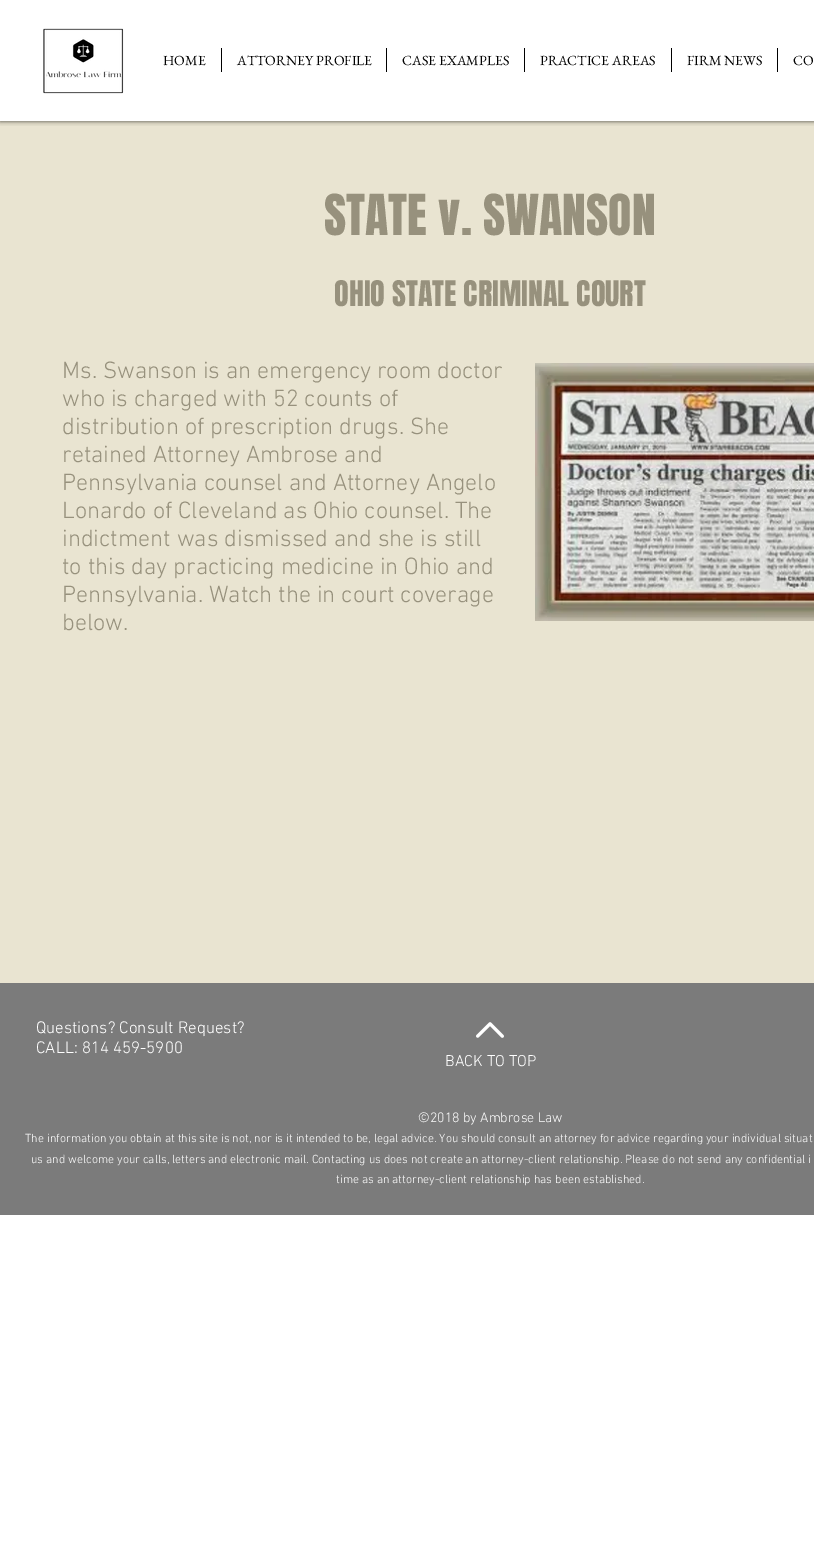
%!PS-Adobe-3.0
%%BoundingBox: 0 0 814 1545
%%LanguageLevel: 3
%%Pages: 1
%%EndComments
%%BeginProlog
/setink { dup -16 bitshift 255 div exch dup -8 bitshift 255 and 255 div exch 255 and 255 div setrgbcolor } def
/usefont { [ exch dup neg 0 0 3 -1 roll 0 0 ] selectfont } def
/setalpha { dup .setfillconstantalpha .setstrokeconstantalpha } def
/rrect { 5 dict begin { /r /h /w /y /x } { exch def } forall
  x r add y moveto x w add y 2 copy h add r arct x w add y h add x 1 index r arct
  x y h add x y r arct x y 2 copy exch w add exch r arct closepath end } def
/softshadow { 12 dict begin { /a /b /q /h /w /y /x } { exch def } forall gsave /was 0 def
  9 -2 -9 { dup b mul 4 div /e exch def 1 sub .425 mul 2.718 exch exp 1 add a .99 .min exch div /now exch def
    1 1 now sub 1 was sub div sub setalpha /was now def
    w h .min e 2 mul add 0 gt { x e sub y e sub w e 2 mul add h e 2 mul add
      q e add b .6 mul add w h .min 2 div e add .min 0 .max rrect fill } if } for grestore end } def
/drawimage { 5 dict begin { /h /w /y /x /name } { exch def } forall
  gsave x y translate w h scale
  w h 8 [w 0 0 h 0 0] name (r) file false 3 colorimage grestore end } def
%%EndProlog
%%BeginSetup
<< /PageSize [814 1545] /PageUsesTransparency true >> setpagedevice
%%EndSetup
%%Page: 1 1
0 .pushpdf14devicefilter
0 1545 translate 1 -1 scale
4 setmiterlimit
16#FFFFFF setink
0 0 814 1545 rectfill
16#E9E4D1 setink
0 121 814 862 rectfill
gsave
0 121 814 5 rectclip
16#000000 setink
0 0 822 121 0 2.5 0.7 softshadow
grestore
(img1.raw) 43 28 81 66 drawimage
/EBGaramond-Regular 14 usefont
16#000000 setink
163 65 moveto (HOME) show
221 48 1 24 rectfill
237 65 moveto (ATTORNEY PROFILE) show
386 48 1 24 rectfill
402 65 moveto (CASE EXAMPLES) show
524 48 1 24 rectfill
540 65 moveto (PRACTICE AREAS) show
671 48 1 24 rectfill
687 65 moveto (FIRM NEWS) show
777 48 1 24 rectfill
793 65 moveto (CO) show
/Anton-Regular 48 usefont
16#97917D setink
324 235 moveto (STATE v. SWANSON) show
/Anton-Regular 30 usefont
334 306 moveto (OHIO STATE CRIMINAL COURT) show
/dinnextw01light-Light 24 usefont
[
    [(Ms. Swanson is an emergency room doctor) 62 378]
    [(who is charged with 52 counts of) 62 406]
    [(distribution of prescription drugs. She) 62 434]
    [(retained Attorney Ambrose and) 62 462]
    [(Pennsylvania counsel and Attorney Angelo) 62 490]
    [(Lonardo of Cleveland as Ohio counsel. The) 62 518]
    [(indictment was dismissed and she is still) 62 546]
    [(to this day practicing medicine in Ohio and) 62 574]
    [(Pennsylvania. Watch the in court coverage) 62 602]
    [(below.) 62 630]
] { aload pop moveto show } forall
(img2.raw) 535 363 279 258 drawimage
16#7B7B7B setink
0 983 814 232 rectfill
/dinnextw01light-Light 17 usefont
16#FFFFFF setink
36 1033 moveto (Questions? Consult Request?) show
36 1053 moveto (CALL: 814 459-5900) show
(img3.raw) 476 1022 28 16 drawimage
/dinnextw01light-Light 16 usefont
445 1066 moveto (BACK TO TOP) show
/dinnextw01light-Light 14 usefont
418 1122 moveto (©2018 by Ambrose Law) show
/dinnextw01light-Light 12 usefont
[
    [(The information you obtain at this site is not, nor is it intended to be, legal advice. You should consult an attorney for advice regarding your individual situat) 25 1142]
    [(us and welcome your calls, letters and electronic mail. Contacting us does not create an attorney-client relationship. Please do not send any confidential i) 31 1163]
    [(time as an attorney-client relationship has been established.) 336 1183]
] { aload pop moveto show } forall
.poppdf14devicefilter showpage
%%EOF
